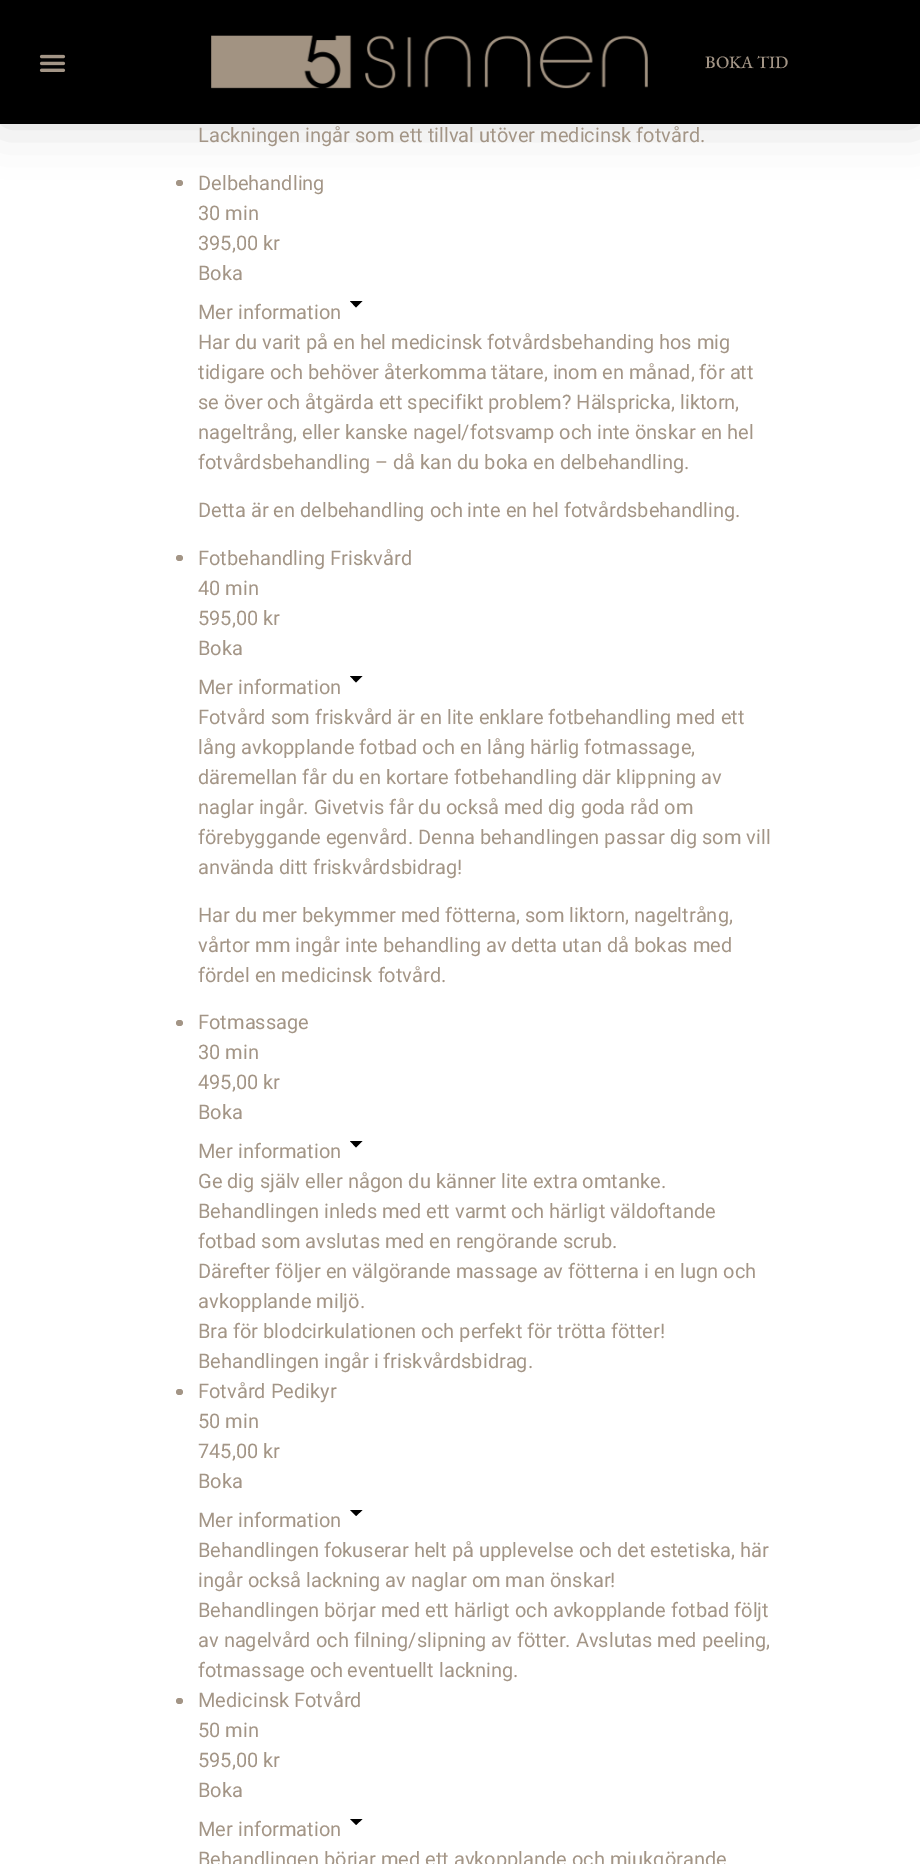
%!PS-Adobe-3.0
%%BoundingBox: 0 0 920 1864
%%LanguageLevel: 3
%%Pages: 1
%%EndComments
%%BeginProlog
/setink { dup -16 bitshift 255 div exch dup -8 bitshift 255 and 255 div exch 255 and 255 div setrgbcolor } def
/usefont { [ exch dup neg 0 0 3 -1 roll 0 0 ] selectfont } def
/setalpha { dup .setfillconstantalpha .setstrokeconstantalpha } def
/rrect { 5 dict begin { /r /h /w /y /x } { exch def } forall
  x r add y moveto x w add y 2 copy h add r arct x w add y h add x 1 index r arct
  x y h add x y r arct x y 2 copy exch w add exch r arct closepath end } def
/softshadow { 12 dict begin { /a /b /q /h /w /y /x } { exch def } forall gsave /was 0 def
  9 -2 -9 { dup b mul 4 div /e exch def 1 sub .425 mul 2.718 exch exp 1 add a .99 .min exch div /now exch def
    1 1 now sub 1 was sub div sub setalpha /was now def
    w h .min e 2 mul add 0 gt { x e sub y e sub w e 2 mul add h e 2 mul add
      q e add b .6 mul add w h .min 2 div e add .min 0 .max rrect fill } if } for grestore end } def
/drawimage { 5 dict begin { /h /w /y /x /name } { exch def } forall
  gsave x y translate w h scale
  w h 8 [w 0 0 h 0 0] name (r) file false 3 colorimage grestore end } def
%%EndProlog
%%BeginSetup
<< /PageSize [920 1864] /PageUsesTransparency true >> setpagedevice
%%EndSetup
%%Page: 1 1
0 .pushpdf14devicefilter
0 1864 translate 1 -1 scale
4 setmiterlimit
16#FFFFFF setink
0 0 920 1864 rectfill
16#A39586 setink
176 180 7 6 3 rrect fill
16#000000 setink
0 0 920 124 0 25 0.16 softshadow
0 0 920 124 rectfill
(img1.raw) 39 54 27 18 drawimage
(img2.raw) 211 35 437 54 drawimage
/EBGaramond-Medium 17.5 usefont
16#A39586 setink
705 68 moveto (BOKA TID) show
/Roboto-Regular 20 usefont
[
    [(Lackningen ingår som ett tillval utöver medicinsk fotvård.) 198 142]
    [(Delbehandling) 198 190]
    [(30 min) 198 220]
    [(395,00 kr) 198 250]
    [(Boka) 198 280]
    [(Mer information) 198 319]
] { aload pop moveto show } forall
16#000000 setink
350 301 moveto 356 307.5 lineto 362.5 301 lineto closepath fill
16#A39586 setink
[
    [(Har du varit på en hel medicinsk fotvårdsbehanding hos mig) 198 349]
    [(tidigare och behöver återkomma tätare, inom en månad, för att) 198 379]
    [(se över och åtgärda ett specifikt problem? Hälspricka, liktorn,) 198 409]
    [(nageltrång, eller kanske nagel/fotsvamp och inte önskar en hel) 198 439]
    [(fotvårdsbehandling – då kan du boka en delbehandling.) 198 469]
    [(Detta är en delbehandling och inte en hel fotvårdsbehandling.) 198 517]
] { aload pop moveto show } forall
176 555 7 6 3 rrect fill
[
    [(Fotbehandling Friskvård) 198 565]
    [(40 min) 198 595]
    [(595,00 kr) 198 625]
    [(Boka) 198 655]
    [(Mer information) 198 694]
] { aload pop moveto show } forall
16#000000 setink
350 676 moveto 356 682.5 lineto 362.5 676 lineto closepath fill
16#A39586 setink
[
    [(Fotvård som friskvård är en lite enklare fotbehandling med ett) 198 724]
    [(lång avkopplande fotbad och en lång härlig fotmassage,) 198 754]
    [(däremellan får du en kortare fotbehandling där klippning av) 198 784]
    [(naglar ingår. Givetvis får du också med dig goda råd om) 198 814]
    [(förebyggande egenvård. Denna behandlingen passar dig som vill) 198 844]
    [(använda ditt friskvårdsbidrag!) 198 874]
    [(Har du mer bekymmer med fötterna, som liktorn, nageltrång,) 198 922]
    [(vårtor mm ingår inte behandling av detta utan då bokas med) 198 952]
    [(fördel en medicinsk fotvård.) 198 982]
] { aload pop moveto show } forall
176 1020 7 6 3 rrect fill
[
    [(Fotmassage) 198 1029]
    [(30 min) 198 1059]
    [(495,00 kr) 198 1089]
    [(Boka) 198 1119]
    [(Mer information) 198 1158]
] { aload pop moveto show } forall
16#000000 setink
350 1141 moveto 356 1147.5 lineto 362.5 1141 lineto closepath fill
16#A39586 setink
[
    [(Ge dig själv eller någon du känner lite extra omtanke.) 198 1188]
    [(Behandlingen inleds med ett varmt och härligt väldoftande) 198 1218]
    [(fotbad som avslutas med en rengörande scrub.) 198 1248]
    [(Därefter följer en välgörande massage av fötterna i en lugn och) 198 1278]
    [(avkopplande miljö.) 198 1308]
    [(Bra för blodcirkulationen och perfekt för trötta fötter!) 198 1338]
    [(Behandlingen ingår i friskvårdsbidrag.) 198 1368]
] { aload pop moveto show } forall
176 1389 7 6 3 rrect fill
[
    [(Fotvård Pedikyr) 198 1398]
    [(50 min) 198 1428]
    [(745,00 kr) 198 1458]
    [(Boka) 198 1488]
    [(Mer information) 198 1527]
] { aload pop moveto show } forall
16#000000 setink
350 1510 moveto 356 1516 lineto 362.5 1510 lineto closepath fill
16#A39586 setink
[
    [(Behandlingen fokuserar helt på upplevelse och det estetiska, här) 198 1557]
    [(ingår också lackning av naglar om man önskar!) 198 1587]
    [(Behandlingen börjar med ett härligt och avkopplande fotbad följt) 198 1617]
    [(av nagelvård och filning/slipning av fötter. Avslutas med peeling,) 198 1647]
    [(fotmassage och eventuellt lackning.) 198 1677]
] { aload pop moveto show } forall
176 1698 7 6 3 rrect fill
[
    [(Medicinsk Fotvård) 198 1707]
    [(50 min) 198 1737]
    [(595,00 kr) 198 1767]
    [(Boka) 198 1797]
    [(Mer information) 198 1836]
] { aload pop moveto show } forall
16#000000 setink
350 1819 moveto 356 1825 lineto 362.5 1819 lineto closepath fill
16#A39586 setink
198 1866 moveto (Behandlingen börjar med ett avkopplande och mjukgörande) show
.poppdf14devicefilter showpage
%%EOF
